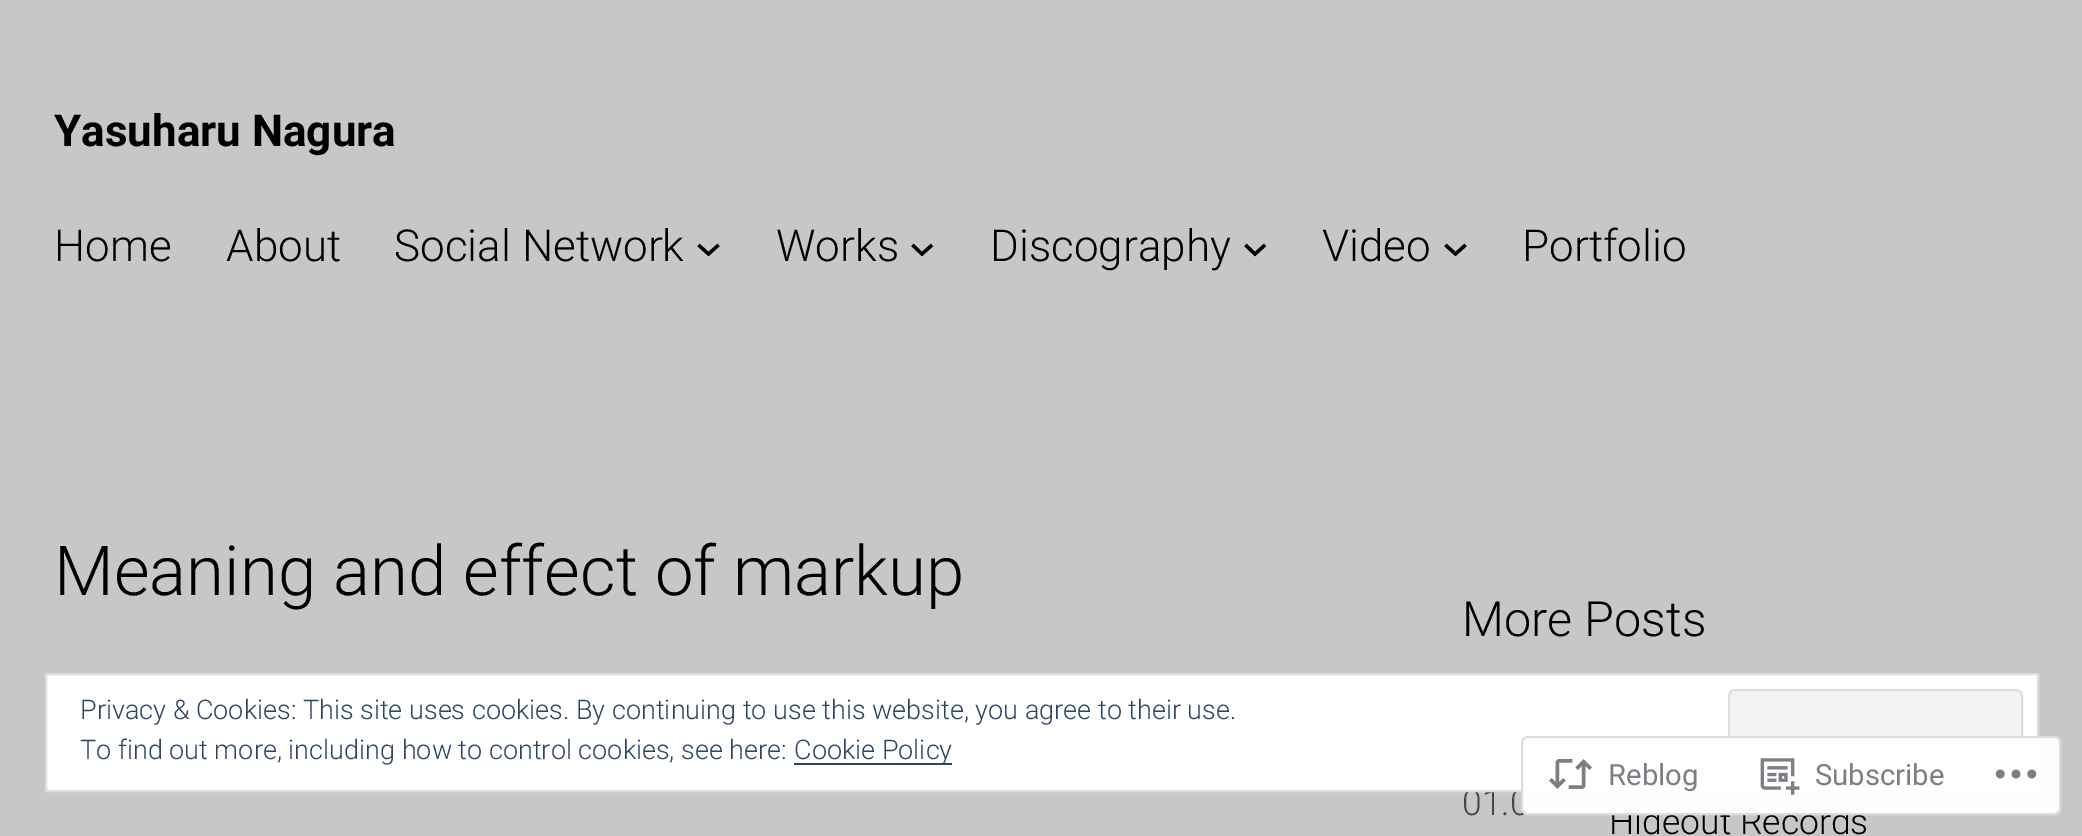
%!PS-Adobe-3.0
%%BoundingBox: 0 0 2082 836
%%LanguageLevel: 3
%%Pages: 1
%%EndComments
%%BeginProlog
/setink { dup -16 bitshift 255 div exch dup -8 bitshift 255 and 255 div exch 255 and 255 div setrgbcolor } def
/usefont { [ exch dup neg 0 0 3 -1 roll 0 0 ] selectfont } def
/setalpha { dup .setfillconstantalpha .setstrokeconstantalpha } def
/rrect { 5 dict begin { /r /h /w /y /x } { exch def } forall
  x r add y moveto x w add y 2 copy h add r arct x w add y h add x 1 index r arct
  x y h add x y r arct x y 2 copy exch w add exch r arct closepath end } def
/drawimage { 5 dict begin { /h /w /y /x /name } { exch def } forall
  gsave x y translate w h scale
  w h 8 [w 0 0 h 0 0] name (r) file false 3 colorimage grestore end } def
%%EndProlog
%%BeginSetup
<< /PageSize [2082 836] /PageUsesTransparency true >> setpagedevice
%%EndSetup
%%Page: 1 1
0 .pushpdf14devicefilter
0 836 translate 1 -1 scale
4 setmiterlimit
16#C7C7C7 setink
0 0 2082 836 rectfill
/Roboto-Bold 44 usefont
16#000000 setink
54 146 moveto (Yasuharu Nagura) show
/Roboto-Light 44 usefont
[
    [(Home) 54 261]
    [(About) 226 261]
    [(Social Network) 394 261]
] { aload pop moveto show } forall
3.3 setlinewidth
698.5 245 moveto 708.5 254 lineto 718.5 245 lineto stroke
776 261 moveto (Works) show
912.5 245 moveto 922 254 lineto 932 245 lineto stroke
990 261 moveto (Discography) show
1245.5 245 moveto 1255 254 lineto 1265 245 lineto stroke
1322 261 moveto (Video) show
1445.5 245 moveto 1455.5 254 lineto 1465.5 245 lineto stroke
1522 261 moveto (Portfolio) show
/Roboto-Light 69 usefont
54 595 moveto (Meaning and effect of markup) show
/Roboto-Light 48.5 usefont
1462 636 moveto (More Posts) show
/Roboto-Light 35.5 usefont
16#454545 setink
1462 815 moveto (01.0) show
16#000000 setink
1609 834 moveto (Hideout Records) show
16#FFFFFF setink
46 674 moveto 2038 674 lineto 2038 791 lineto 46 791 lineto closepath gsave fill grestore
16#DEDEDE setink
2 setlinewidth
stroke
/Roboto-Light 27 usefont
16#2E4467 setink
80 719 moveto (Privacy & Cookies: This site uses cookies. By continuing to use this website, you agree to their use.) show
16#F3F3F3 setink
1729 690 293 85 6 rrect gsave fill grestore
16#DEDEDE setink
stroke
16#2E4467 setink
80 759 moveto (To find out more, including how to control cookies, see here:) show
794 763 158 2 rectfill
794 759 moveto (Cookie Policy) show
0.98 setalpha
16#FFFFFF setink
1521 736 540 79 7 rrect fill
16#DCDCDE setink
1522 737 538 77 6 rrect stroke
1 setalpha
(img1.raw) 1549 759 43 30 drawimage
/Roboto-Regular 29.25 usefont
16#7B7F84 setink
1608 785 moveto (Reblog) show
(img2.raw) 1760 758 40 37 drawimage
1815 785 moveto (Subscribe) show
(img3.raw) 1995 769 42 10 drawimage
.poppdf14devicefilter showpage
%%EOF
